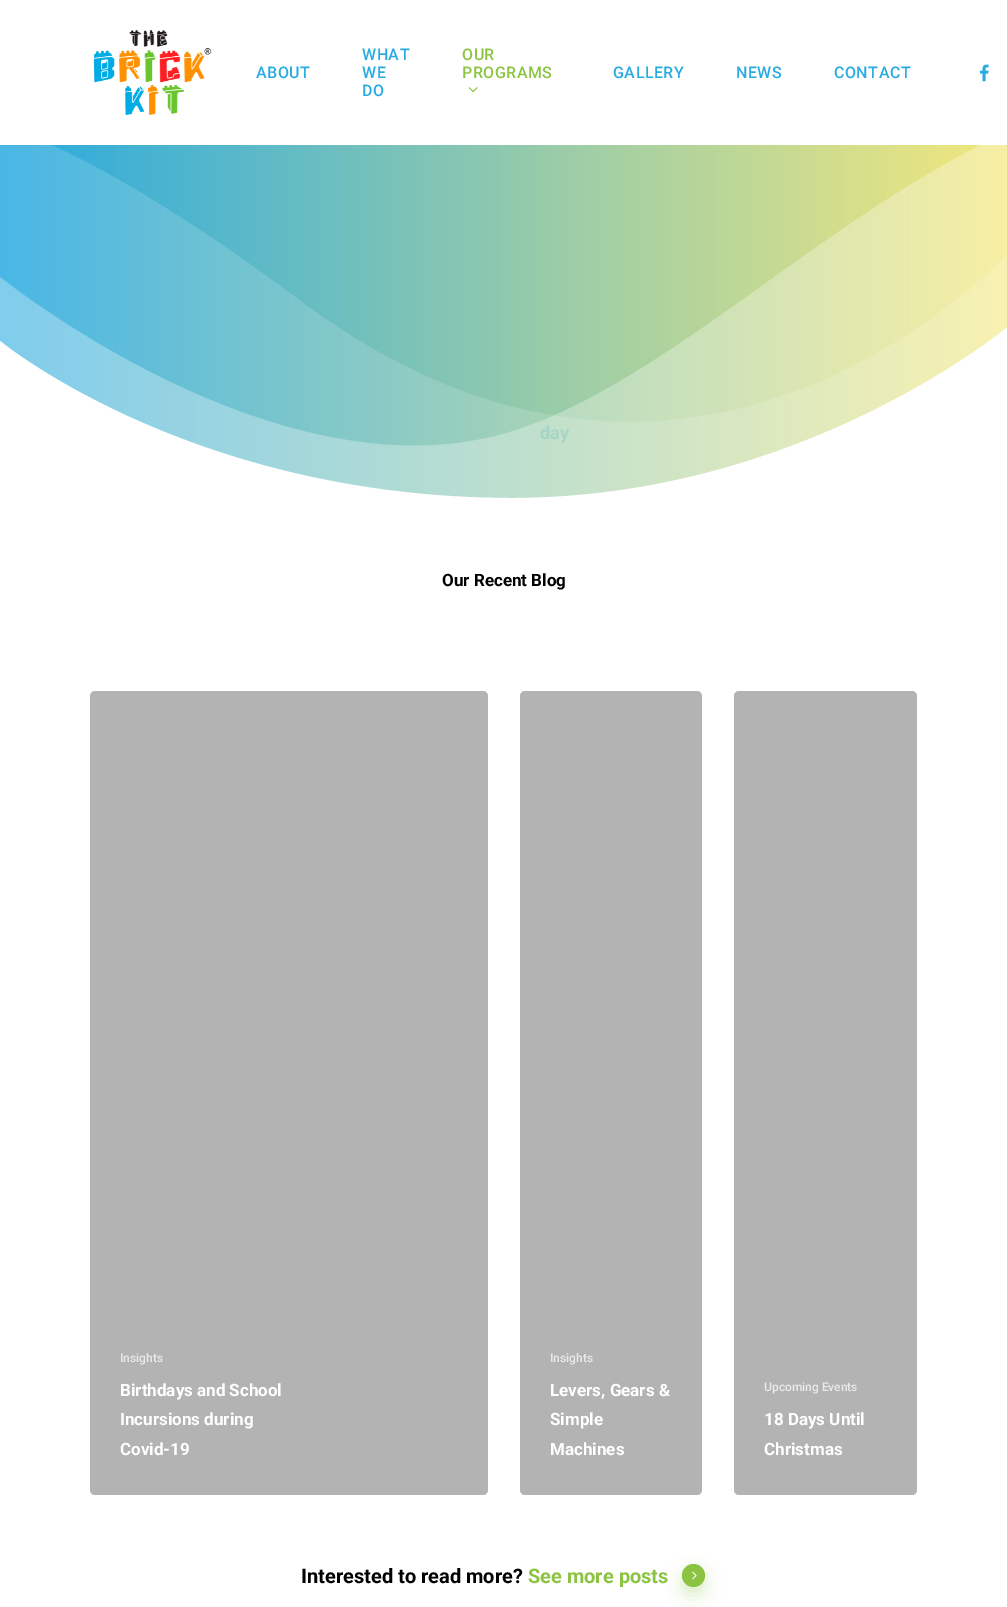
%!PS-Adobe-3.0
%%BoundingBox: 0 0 1007 1607
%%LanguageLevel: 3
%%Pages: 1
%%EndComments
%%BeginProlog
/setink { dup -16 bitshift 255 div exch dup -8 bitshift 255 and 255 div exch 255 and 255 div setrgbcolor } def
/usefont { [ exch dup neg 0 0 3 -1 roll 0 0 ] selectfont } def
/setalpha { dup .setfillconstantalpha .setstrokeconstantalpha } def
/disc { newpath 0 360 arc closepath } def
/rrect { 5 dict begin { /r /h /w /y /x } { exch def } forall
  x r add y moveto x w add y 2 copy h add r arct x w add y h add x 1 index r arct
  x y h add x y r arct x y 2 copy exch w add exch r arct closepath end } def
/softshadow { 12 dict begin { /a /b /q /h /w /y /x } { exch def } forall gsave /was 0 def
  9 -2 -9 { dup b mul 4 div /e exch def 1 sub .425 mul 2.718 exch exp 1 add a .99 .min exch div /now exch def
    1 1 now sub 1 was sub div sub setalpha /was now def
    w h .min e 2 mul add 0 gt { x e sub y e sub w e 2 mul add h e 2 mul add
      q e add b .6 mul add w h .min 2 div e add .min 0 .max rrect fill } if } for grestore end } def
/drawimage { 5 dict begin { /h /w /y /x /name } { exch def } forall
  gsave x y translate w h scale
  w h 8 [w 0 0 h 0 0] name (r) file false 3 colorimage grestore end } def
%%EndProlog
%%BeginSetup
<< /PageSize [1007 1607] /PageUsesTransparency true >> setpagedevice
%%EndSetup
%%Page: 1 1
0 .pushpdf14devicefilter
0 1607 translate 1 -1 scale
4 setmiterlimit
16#FFFFFF setink
0 0 1007 1607 rectfill
(img1.raw) 93 30 119 85 drawimage
/Roboto-Medium 16 usefont
16#29AAE1 setink
256 78 moveto 0.5 0 (ABOUT) ashow
362 60 moveto 0.5 0 (WHAT) ashow
362 78 moveto 0.5 0 (WE) ashow
362 96 moveto 0.5 0 (DO) ashow
16#8BC441 setink
462 60 moveto 0.5 0 (OUR) ashow
462 78 moveto 0.5 0 (PROGRAMS) ashow
(img2.raw) 468 87 10 6 drawimage
16#29AAE1 setink
613 78 moveto 0.5 0 (GALLERY) ashow
736 78 moveto 0.5 0 (NEWS) ashow
834 78 moveto 0.5 0 (CONTACT) ashow
(img3.raw) 979 64 10 18 drawimage
gsave 0 145 moveto 1007 145 lineto 1007 498 lineto 0 498 lineto closepath clip newpath
<< /ShadingType 2 /ColorSpace /DeviceRGB /Coords [0 -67 1007 -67] /Extend [true true] /Function << /FunctionType 2 /Domain [0 1] /C0 [0.161 0.667 0.882] /C1 [0.957 0.91 0.486] /N 1 >> >> shfill grestore
gsave
0 57 1007 489 rectclip
0.15 setalpha
16#FFFFFF setink
0 126 moveto 0 126 89 143 302 302 curveto 564 498 820 434 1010 253 curveto 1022 390 lineto 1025 566 lineto 0 566 lineto closepath fill
0.3 setalpha
0 277 moveto 0 277 273 498 503 434 curveto 662 390 836 204 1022 126 curveto 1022 547 lineto 0 547 lineto closepath fill
1 setalpha
0 341 moveto 0 341 190 498 512 498 curveto 804 498 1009 326 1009 326 curveto 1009 547 lineto 0 547 lineto closepath fill
grestore
/Roboto-Bold 18 usefont
16#A5D5C5 setink
540 439 moveto (day) show
/Roboto-Bold 17 usefont
16#000000 setink
442 586 moveto (Our Recent Blog) show
16#B3B3B3 setink
90 691 398 804 5 rrect fill
/Roboto-Medium 12 usefont
16#EAEAEA setink
120 1362 moveto (Insights) show
/Roboto-Bold 17 usefont
16#FFFFFF setink
[
    [(Birthdays and School) 120 1396]
    [(Incursions during) 120 1425]
    [(Covid-19) 120 1455]
] { aload pop moveto show } forall
16#B3B3B3 setink
520 691 182 804 5 rrect fill
/Roboto-Medium 12 usefont
16#EAEAEA setink
550 1362 moveto (Insights) show
/Roboto-Bold 17 usefont
16#FFFFFF setink
[
    [(Levers, Gears &) 550 1396]
    [(Simple) 550 1425]
    [(Machines) 550 1455]
] { aload pop moveto show } forall
16#B3B3B3 setink
734 691 183 804 5 rrect fill
/Roboto-Medium 12 usefont
16#EAEAEA setink
764 1391 moveto (Upcoming Events) show
/Roboto-Bold 17 usefont
16#FFFFFF setink
764 1425 moveto (18 Days Until) show
764 1455 moveto (Christmas) show
/Roboto-Bold 20 usefont
16#000000 setink
301 1583 moveto (Interested to read more?) show
16#DDEEC8 setink
682 1572 23 23 11.5 8.5 1 softshadow
16#8BC441 setink
528 1583 moveto (See more posts) show
693.5 1575.5 11.5 disc fill
(img4.raw) 692 1571 5 9 drawimage
.poppdf14devicefilter showpage
%%EOF
